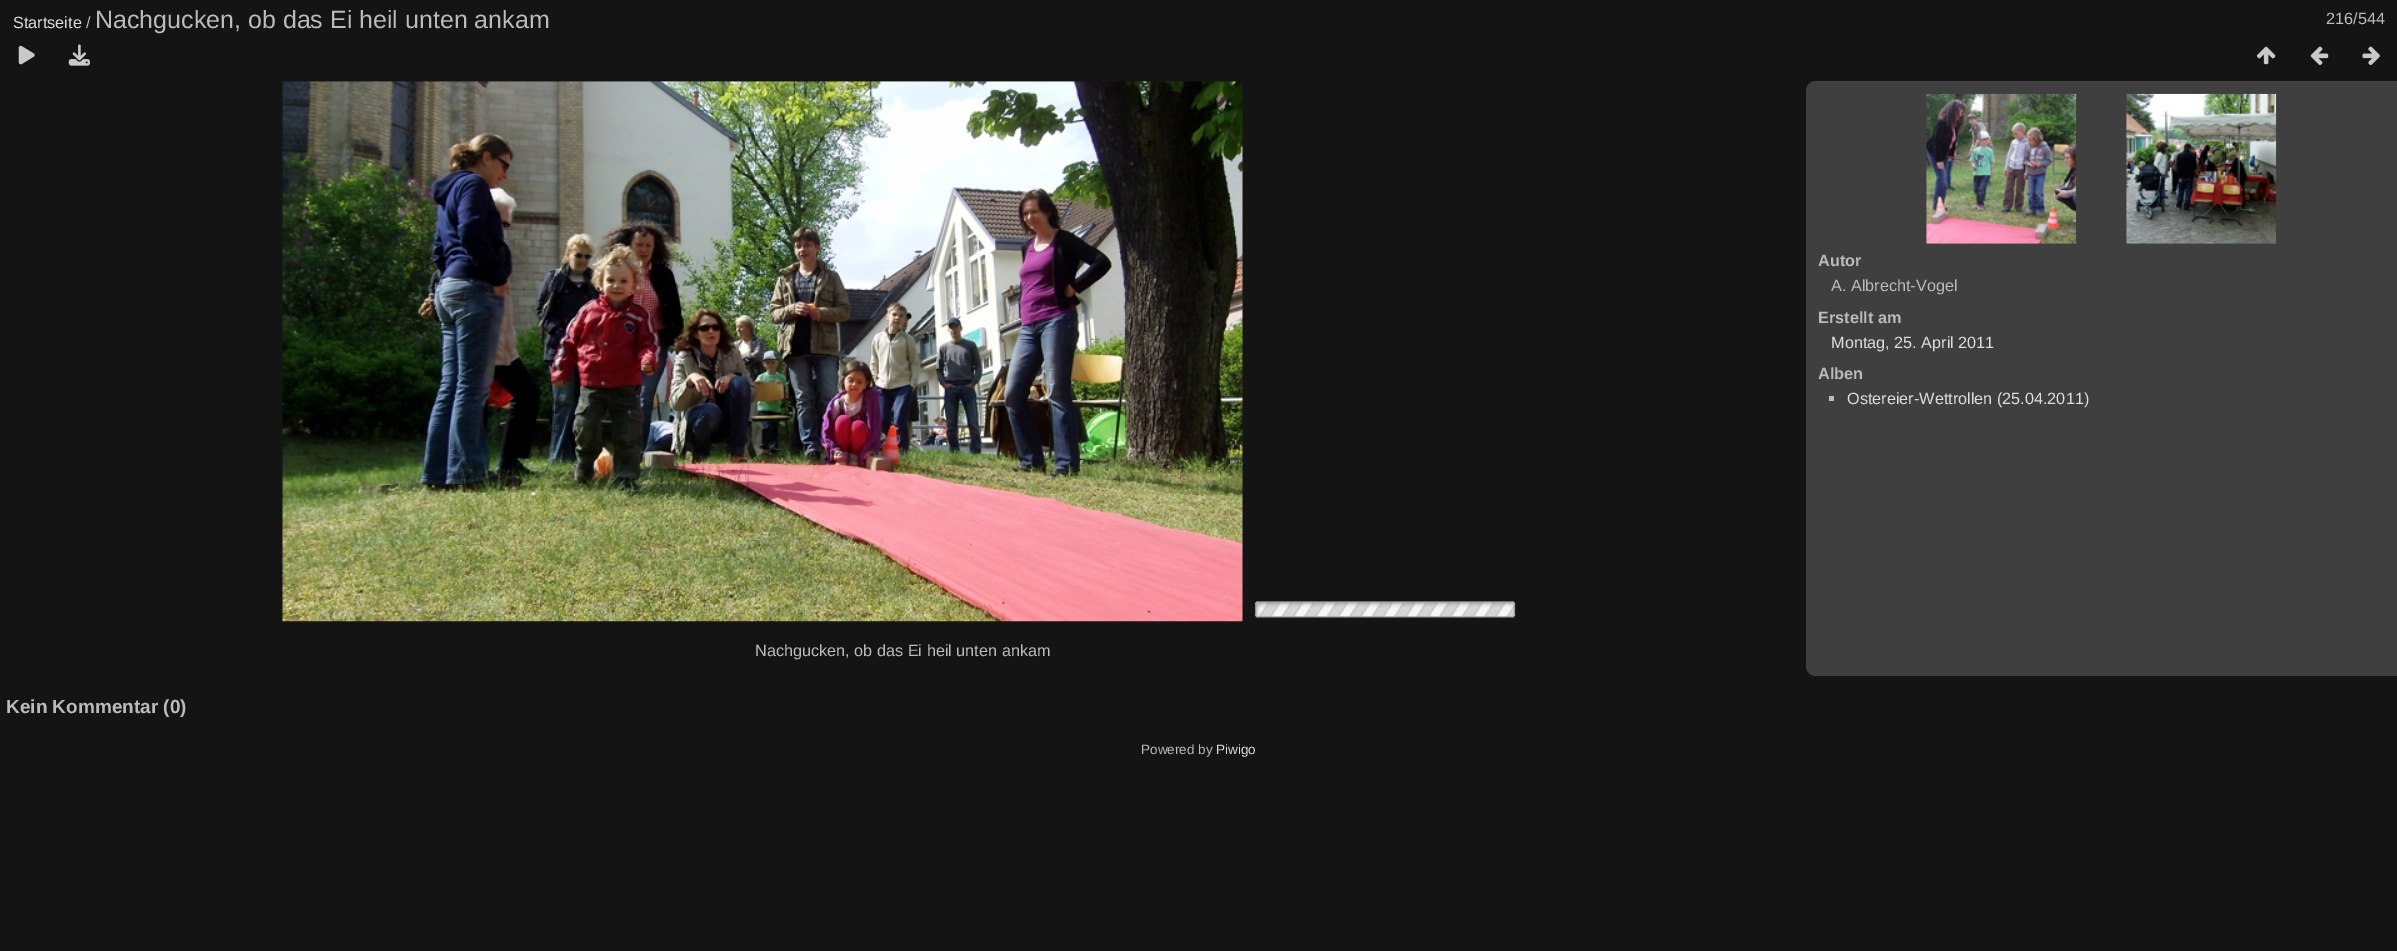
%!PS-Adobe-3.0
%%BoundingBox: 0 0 2397 951
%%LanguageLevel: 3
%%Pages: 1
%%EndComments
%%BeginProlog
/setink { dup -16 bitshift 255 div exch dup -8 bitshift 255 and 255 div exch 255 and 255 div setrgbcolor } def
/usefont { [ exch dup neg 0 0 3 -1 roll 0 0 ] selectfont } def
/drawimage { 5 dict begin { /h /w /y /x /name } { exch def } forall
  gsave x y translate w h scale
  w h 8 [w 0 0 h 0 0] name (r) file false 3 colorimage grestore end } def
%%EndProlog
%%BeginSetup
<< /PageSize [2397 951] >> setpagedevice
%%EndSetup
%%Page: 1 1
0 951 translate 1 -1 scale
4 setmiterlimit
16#141414 setink
0 0 2397 951 rectfill
/LiberationSans-Regular 16.25 usefont
16#DDDDDD setink
13 28 moveto (Startseite) show
16#BBBBBB setink
86 28 moveto (/) show
/LiberationSans-Regular 25 usefont
95 28 moveto (Nachgucken, ob das Ei heil unten ankam) show
/LiberationSans-Regular 16.25 usefont
2326 24 moveto (216/544) show
(img1.raw) 18 45 17 20 drawimage
(img2.raw) 68 44 22 22 drawimage
(img3.raw) 2256 46 20 19 drawimage
(img4.raw) 2310 46 19 19 drawimage
(img5.raw) 2362 46 18 19 drawimage
16#3F3F3F setink
1816 81 moveto 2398 81 lineto 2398 676 lineto 1816 676 lineto 1810.5 676 1806 671.5 1806 666 curveto 1806 91 lineto 1806 85.5 1810.5 81 1816 81 curveto closepath fill
(img6.raw) 1926 93 151 151 drawimage
(img7.raw) 2126 93 151 151 drawimage
/LiberationSans-Bold 16.25 usefont
16#BBBBBB setink
1818 266 moveto (Autor) show
/LiberationSans-Regular 16.25 usefont
1831 291 moveto (A. Albrecht-Vogel) show
/LiberationSans-Bold 16.25 usefont
1818 323 moveto (Erstellt am) show
/LiberationSans-Regular 16.25 usefont
16#DDDDDD setink
1831 348 moveto (Montag, 25. April 2011) show
/LiberationSans-Bold 16.25 usefont
16#BBBBBB setink
1818 379 moveto (Alben) show
1829 396 5 5 rectfill
/LiberationSans-Regular 16.25 usefont
16#DDDDDD setink
1847 404 moveto (Ostereier-Wettrollen \(25.04.2011\)) show
(img8.raw) 282 81 961 541 drawimage
(img9.raw) 1254 601 262 17 drawimage
16#BBBBBB setink
755 656 moveto (Nachgucken, ob das Ei heil unten ankam) show
/LiberationSans-Bold 19 usefont
6 713 moveto (Kein Kommentar \(0\)) show
/LiberationSans-Regular 13.5 usefont
1141 754 moveto (Powered by) show
16#DDDDDD setink
1216 754 moveto (Piwigo) show
showpage
%%EOF
